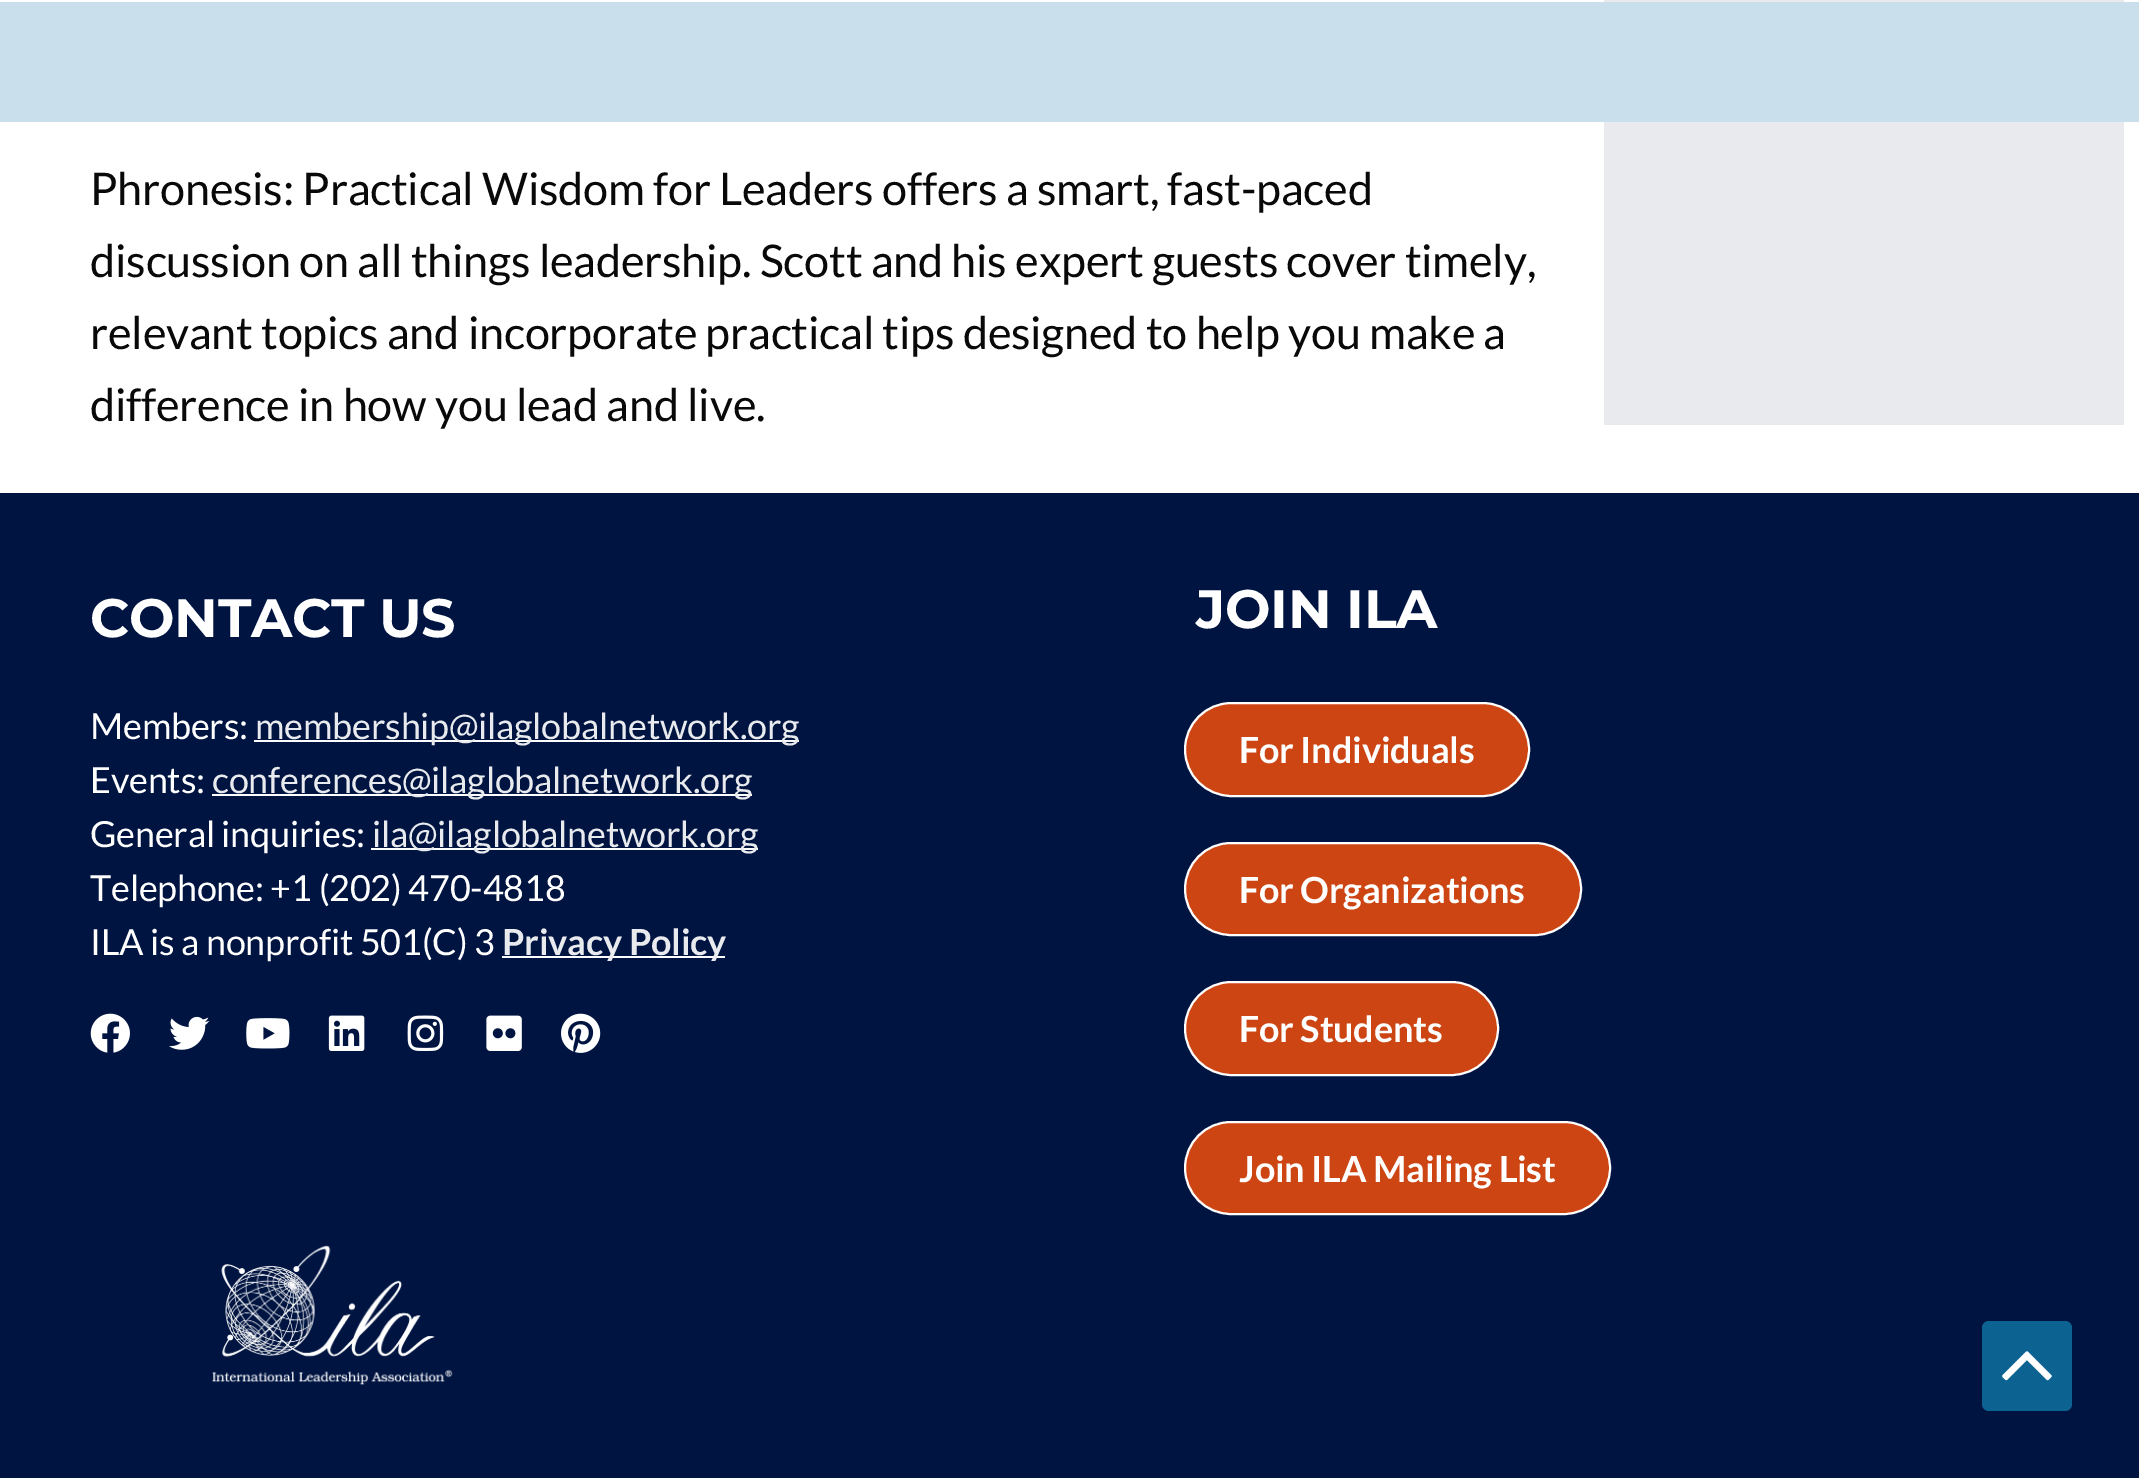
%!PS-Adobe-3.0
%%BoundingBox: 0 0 2139 1478
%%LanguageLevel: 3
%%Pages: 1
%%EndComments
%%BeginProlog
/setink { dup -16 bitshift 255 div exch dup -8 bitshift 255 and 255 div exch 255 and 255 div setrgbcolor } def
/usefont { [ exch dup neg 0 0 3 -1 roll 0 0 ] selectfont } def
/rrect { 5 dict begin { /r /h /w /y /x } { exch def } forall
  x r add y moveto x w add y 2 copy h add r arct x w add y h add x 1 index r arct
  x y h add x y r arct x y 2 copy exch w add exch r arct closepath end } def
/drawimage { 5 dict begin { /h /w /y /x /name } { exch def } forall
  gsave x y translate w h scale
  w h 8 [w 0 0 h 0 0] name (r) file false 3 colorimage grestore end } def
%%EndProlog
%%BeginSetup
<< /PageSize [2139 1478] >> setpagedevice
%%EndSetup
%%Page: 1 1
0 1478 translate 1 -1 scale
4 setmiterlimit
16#FFFFFF setink
0 0 2139 1478 rectfill
16#E8EAEE setink
1604 0 520 425 rectfill
16#C9E0EC setink
0 2 2139 120 rectfill
/Lato-Regular 45 usefont
16#090909 setink
90 205 moveto -0.23 0 (Phronesis: Practical Wisdom for Leaders offers a smart, fast-paced) ashow
90 277 moveto -0.23 0 (discussion on all things leadership. Scott and his expert guests cover timely,) ashow
90 349 moveto -0.23 0 (relevant topics and incorporate practical tips designed to help you make a) ashow
90 421 moveto -0.23 0 (difference in how you lead and live.) ashow
16#001441 setink
0 493 2139 985 rectfill
/Montserrat-Bold 54 usefont
16#FFFFFF setink
90 637 moveto -0.23 0 (CONTACT US) ashow
/Lato-Regular 36 usefont
90 739 moveto -0.23 0 (Members:) ashow
254 740 545 2 rectfill
16#E8EAEE setink
255 739 moveto -0.23 0 (membership@ilaglobalnetwork.org) ashow
16#FFFFFF setink
90 793 moveto -0.23 0 (Events:) ashow
212 794 540 2 rectfill
16#E8EAEE setink
212 793 moveto -0.23 0 (conferences@ilaglobalnetwork.org) ashow
16#FFFFFF setink
90 847 moveto -0.23 0 (General inquiries:) ashow
371 848 387 2 rectfill
16#E8EAEE setink
372 847 moveto -0.23 0 (ila@ilaglobalnetwork.org) ashow
16#FFFFFF setink
90 901 moveto -0.23 0 (Telephone: +1 \(202\) 470-4818) ashow
90 955 moveto -0.23 0 (ILA is a nonprofit 501\(C\) 3) ashow
502 956 223 2 rectfill
/Lato-Bold 36 usefont
16#E8EAEE setink
502 955 moveto -0.23 0 (Privacy Policy) ashow
(img1.raw) 90 1013 40 40 drawimage
(img2.raw) 169 1016 41 34 drawimage
(img3.raw) 246 1018 44 31 drawimage
(img4.raw) 328 1015 37 36 drawimage
(img5.raw) 407 1015 37 36 drawimage
(img6.raw) 486 1015 36 36 drawimage
(img7.raw) 561 1013 40 40 drawimage
/Montserrat-Bold 54 usefont
16#FFFFFF setink
1196 628 moveto -0.23 0 (JOIN ILA) ashow
16#CD4513 setink
1185 703 344 93 46.5 rrect gsave fill grestore
16#FFFFFF setink
2 setlinewidth
stroke
/Lato-Bold 36 usefont
1239 763 moveto -0.23 0 (For Individuals) ashow
16#CD4513 setink
1185 843 396 92 46 rrect gsave fill grestore
16#FFFFFF setink
stroke
1239 903 moveto -0.23 0 (For Organizations) ashow
16#CD4513 setink
1185 982 313 93 46.5 rrect gsave fill grestore
16#FFFFFF setink
stroke
1239 1042 moveto -0.23 0 (For Students) ashow
16#CD4513 setink
1185 1122 425 92 46 rrect gsave fill grestore
16#FFFFFF setink
stroke
1239 1182 moveto -0.23 0 (Join ILA Mailing List) ashow
(img8.raw) 212 1245 241 140 drawimage
16#0C6392 setink
1982 1321 90 90 7 rrect fill
(img9.raw) 2002 1351 50 30 drawimage
showpage
%%EOF
